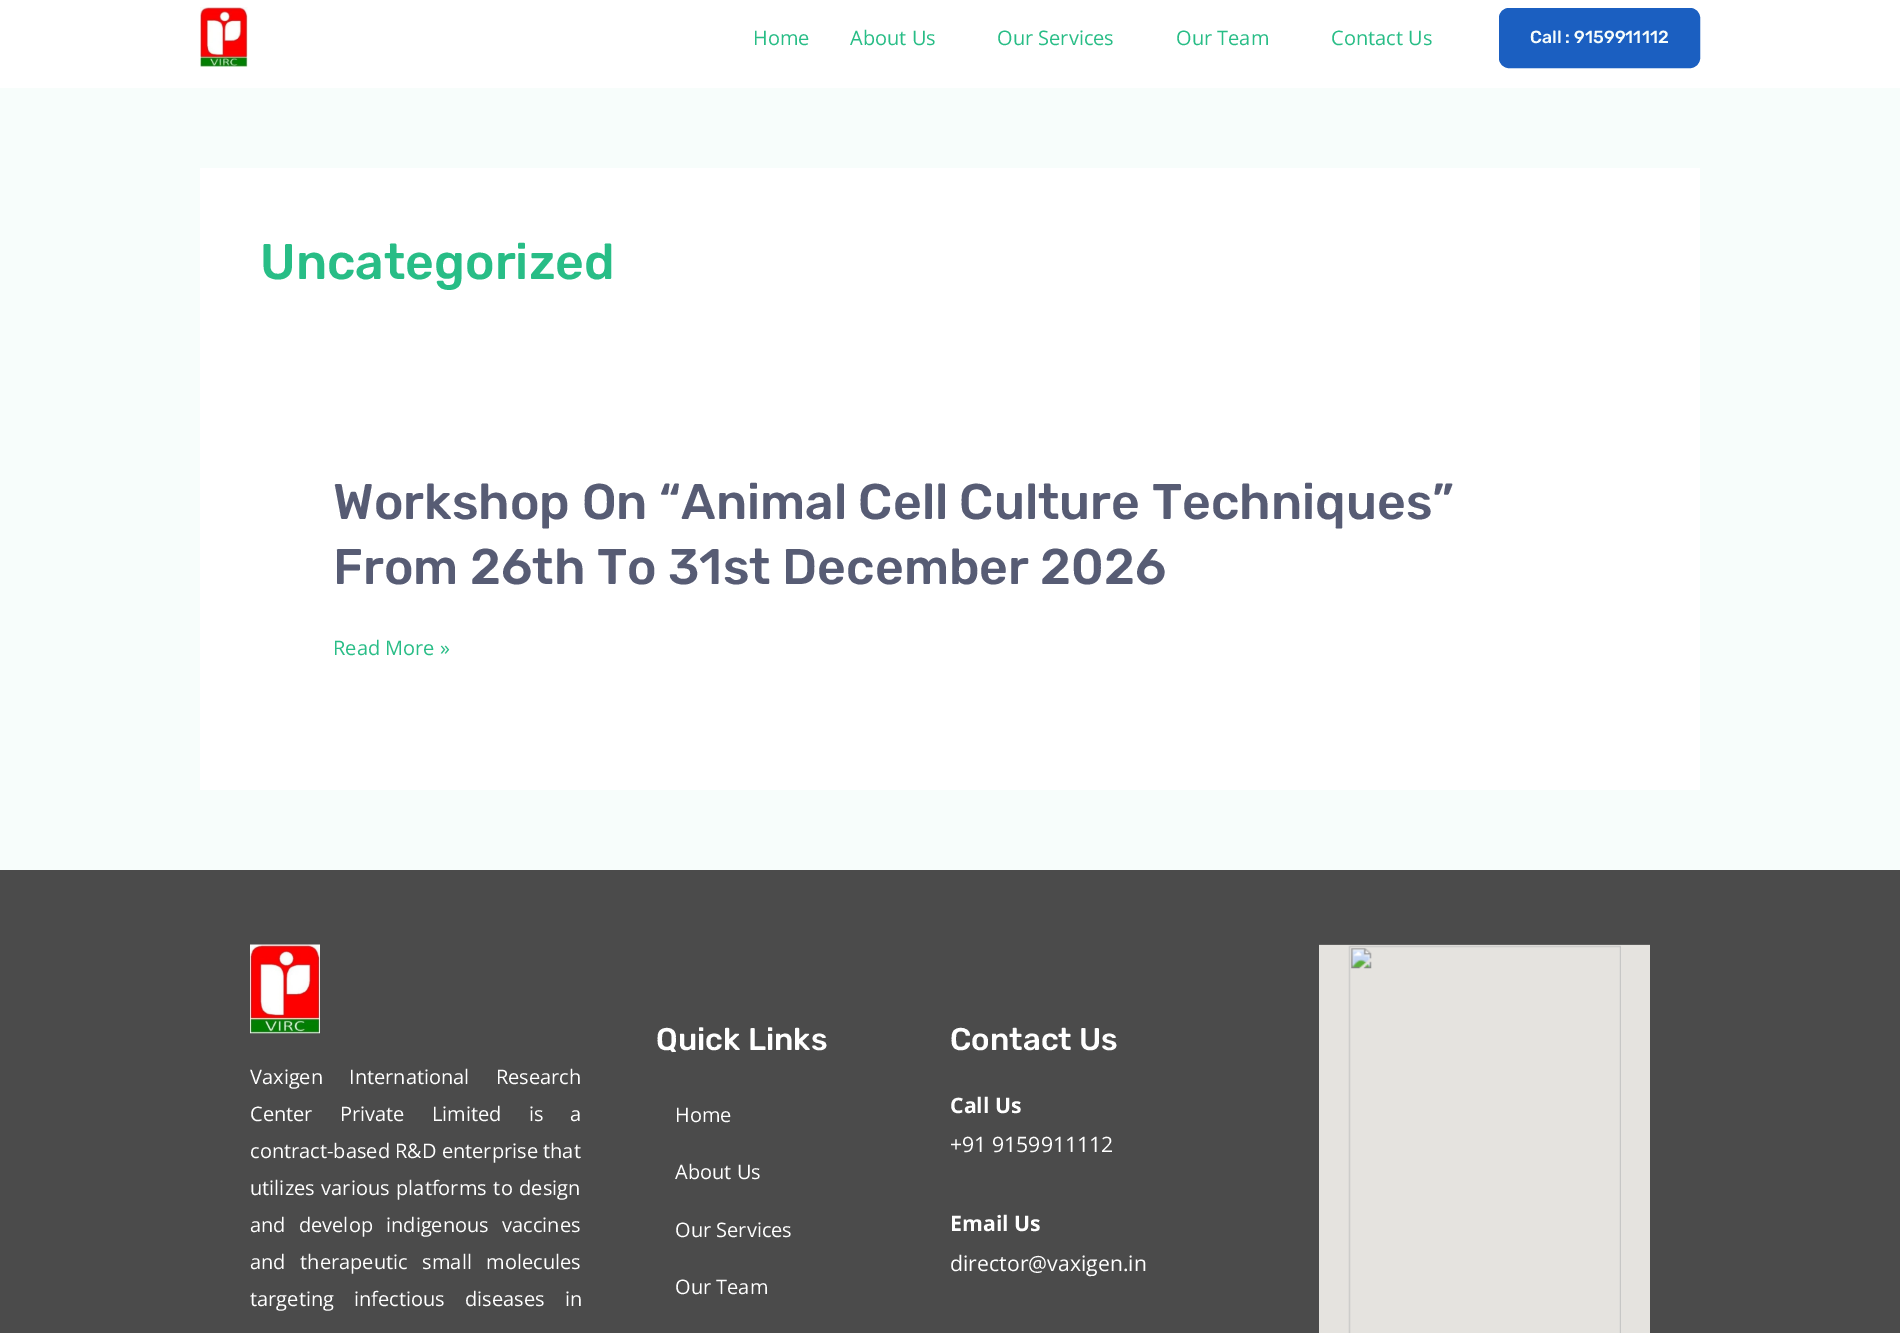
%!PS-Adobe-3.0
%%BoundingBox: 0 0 1900 1333
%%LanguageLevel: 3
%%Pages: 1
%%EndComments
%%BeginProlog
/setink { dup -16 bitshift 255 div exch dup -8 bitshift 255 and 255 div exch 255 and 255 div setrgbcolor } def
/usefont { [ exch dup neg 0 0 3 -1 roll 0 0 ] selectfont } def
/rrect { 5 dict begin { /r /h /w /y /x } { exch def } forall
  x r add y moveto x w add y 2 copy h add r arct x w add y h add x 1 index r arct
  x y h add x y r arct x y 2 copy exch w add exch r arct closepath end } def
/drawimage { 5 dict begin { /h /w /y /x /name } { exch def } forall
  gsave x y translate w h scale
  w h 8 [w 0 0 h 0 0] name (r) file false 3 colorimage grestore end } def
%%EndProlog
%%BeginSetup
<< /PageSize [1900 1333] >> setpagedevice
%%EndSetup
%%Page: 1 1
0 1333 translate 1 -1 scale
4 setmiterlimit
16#F7FDFB setink
0 0 1900 1333 rectfill
16#FFFFFF setink
0 0 1900 88 rectfill
(img1.raw) 200 7 48 60 drawimage
/OpenSans-Regular 20 usefont
16#28BD86 setink
[
    [(Home) 753 45]
    [(About Us) 850 45]
    [(Our Services) 997 45]
    [(Our Team) 1176 45]
    [(Contact Us) 1331 45]
] { aload pop moveto show } forall
16#1B5FC1 setink
1499.5 8.5 200 59 9.5 rrect gsave fill grestore
stroke
/Rubik-Light 17.5 usefont
16#F7FDFB setink
1530 43 moveto (Call : 9159911112) show
16#FFFFFF setink
200 168 1500 622 rectfill
/Rubik-Light 50 usefont
16#28BD86 setink
260 279 moveto (Uncategorized) show
16#575C74 setink
333 519 moveto (Workshop On “Animal Cell Culture Techniques”) show
333 584 moveto (From 26th To 31st December 2026) show
/OpenSans-Regular 20 usefont
16#28BD86 setink
333 655 moveto (Read More ») show
16#4B4B4B setink
0 870 1900 463 rectfill
(img2.raw) 250 944 70 90 drawimage
16#FFFFFF setink
250 1084 moveto 21 0 32 (Vaxigen International Research) widthshow
250 1121 moveto 22 0 32 (Center Private Limited is a) widthshow
250 1158 moveto (contract-based R&D enterprise that) show
250 1195 moveto 1.5 0 32 (utilizes various platforms to design) widthshow
250 1232 moveto 8 0 32 (and develop indigenous vaccines) widthshow
250 1269 moveto 9.5 0 32 (and therapeutic small molecules) widthshow
250 1306 moveto 15 0 32 (targeting infectious diseases in) widthshow
/Rubik-Light 31.25 usefont
656 1050 moveto (Quick Links) show
/OpenSans-Regular 20 usefont
[
    [(Home) 675 1122]
    [(About Us) 675 1179]
    [(Our Services) 675 1237]
    [(Our Team) 675 1294]
] { aload pop moveto show } forall
/Rubik-Light 31.25 usefont
950 1050 moveto (Contact Us) show
/OpenSans-Bold 21.25 usefont
950 1113 moveto (Call Us) show
/OpenSans-Regular 21.25 usefont
950 1152 moveto (+91 9159911112) show
/OpenSans-Bold 21.25 usefont
950 1231 moveto (Email Us) show
/OpenSans-Regular 21.25 usefont
950 1271 moveto (director@vaxigen.in) show
(img3.raw) 1319 944 331 389 drawimage
showpage
%%EOF
